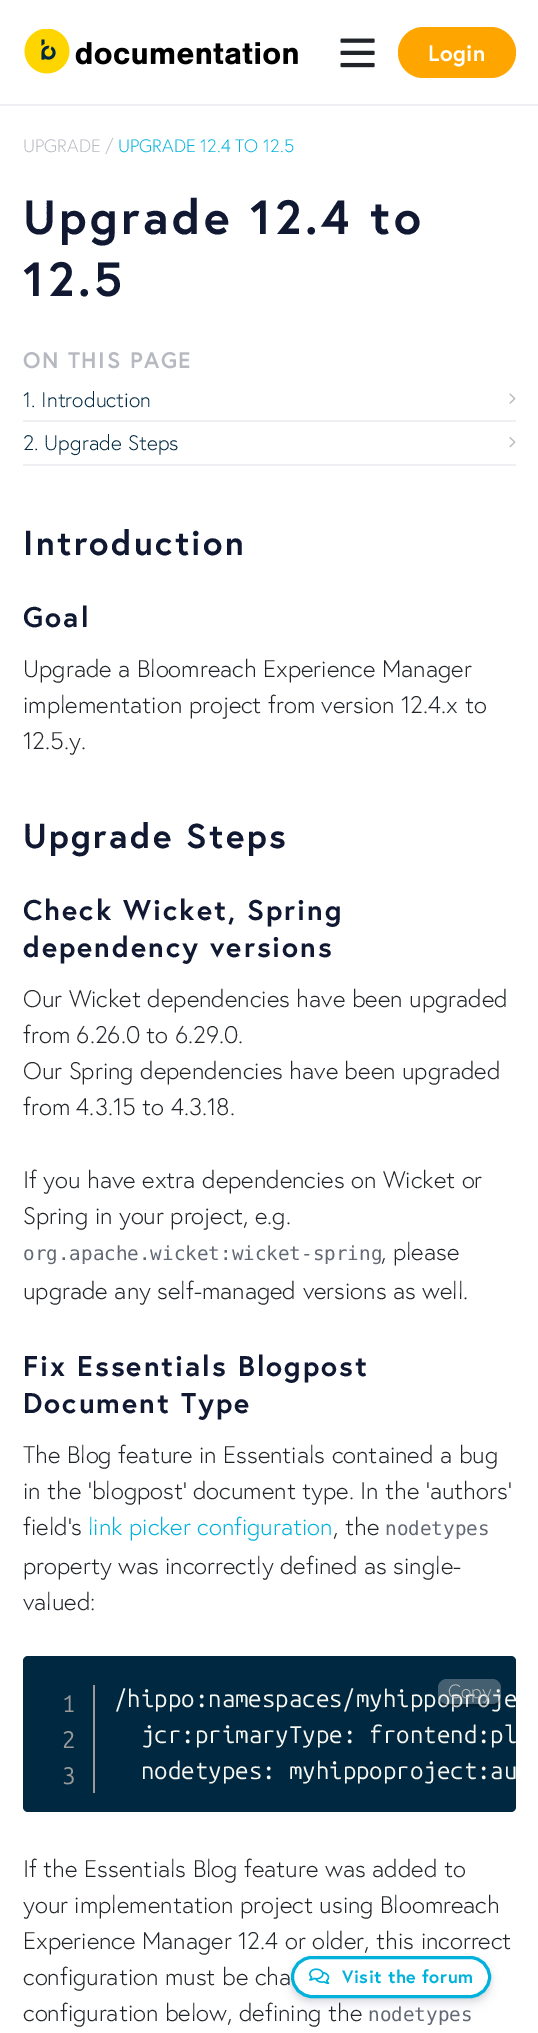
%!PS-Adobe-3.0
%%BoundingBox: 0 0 538 2033
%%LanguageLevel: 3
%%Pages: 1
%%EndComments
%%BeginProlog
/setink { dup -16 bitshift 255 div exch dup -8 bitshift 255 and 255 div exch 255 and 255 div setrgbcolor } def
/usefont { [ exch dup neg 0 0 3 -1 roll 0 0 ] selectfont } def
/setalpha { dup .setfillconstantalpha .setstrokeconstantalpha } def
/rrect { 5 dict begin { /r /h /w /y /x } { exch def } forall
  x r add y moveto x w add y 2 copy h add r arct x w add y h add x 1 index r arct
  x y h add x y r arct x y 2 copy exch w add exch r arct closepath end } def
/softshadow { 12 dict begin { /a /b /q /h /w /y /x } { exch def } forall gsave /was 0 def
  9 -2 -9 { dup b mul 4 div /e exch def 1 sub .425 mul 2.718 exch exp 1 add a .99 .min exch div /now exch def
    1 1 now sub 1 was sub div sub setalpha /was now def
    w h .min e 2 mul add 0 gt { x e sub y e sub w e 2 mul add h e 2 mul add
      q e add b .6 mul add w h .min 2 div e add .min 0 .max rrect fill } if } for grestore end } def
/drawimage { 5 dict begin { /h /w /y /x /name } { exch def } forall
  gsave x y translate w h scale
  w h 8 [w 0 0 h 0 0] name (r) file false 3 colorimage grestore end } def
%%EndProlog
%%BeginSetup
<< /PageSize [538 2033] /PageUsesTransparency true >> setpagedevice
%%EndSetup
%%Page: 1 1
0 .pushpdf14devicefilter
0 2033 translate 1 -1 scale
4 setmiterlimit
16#FFFFFF setink
0 0 538 2033 rectfill
16#EFF0F4 setink
0 104 538 2 rectfill
(img1.raw) 24 29 274 45 drawimage
(img2.raw) 340 38 35 30 drawimage
16#FFA500 setink
398 27 118 51 25.5 rrect fill
/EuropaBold-Bold 22.5 usefont
16#FFFFFF setink
428 61 moveto 0.5 0 (Login) ashow
/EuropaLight-Light 18 usefont
16#B7B9C1 setink
23 152 moveto (UPGRADE /) show
16#00B2DB setink
118 152 moveto (UPGRADE 12.4 TO 12.5) show
/EuropaBold-Bold 48 usefont
16#101832 setink
23 234 moveto 3.4 0 (Upgrade 12.4 to) ashow
23 296 moveto 3.4 0 (12.5) ashow
/EuropaBold-Bold 22.5 usefont
16#B7B9C1 setink
23 368 moveto 1.5 0 (ON THIS PAGE) ashow
16#EFF0F4 setink
23 420 493 2 rectfill
/EuropaLight-Light 21 usefont
16#002840 setink
23 407 moveto (1. Introduction) show
(img3.raw) 509 393 7 11 drawimage
16#EFF0F4 setink
23 464 493 2 rectfill
16#002840 setink
23 450 moveto (2. Upgrade Steps) show
(img4.raw) 509 437 7 11 drawimage
/EuropaBold-Bold 34.5 usefont
16#101832 setink
23 555 moveto 2.4 0 (Introduction) ashow
/EuropaBold-Bold 28.5 usefont
23 627 moveto 2 0 (Goal) ashow
/EuropaLight-Light 24 usefont
16#212529 setink
[
    [(Upgrade a Bloomreach Experience Manager) 23 677]
    [(implementation project from version 12.4.x to) 23 713]
    [(12.5.y.) 23 749]
] { aload pop moveto show } forall
/EuropaBold-Bold 34.5 usefont
16#101832 setink
23 848 moveto 2.4 0 (Upgrade Steps) ashow
/EuropaBold-Bold 28.5 usefont
23 920 moveto 2 0 (Check Wicket, Spring) ashow
23 957 moveto 2 0 (dependency versions) ashow
/EuropaLight-Light 24 usefont
16#212529 setink
[
    [(Our Wicket dependencies have been upgraded) 23 1007]
    [(from 6.26.0 to 6.29.0.) 23 1043]
    [(Our Spring dependencies have been upgraded) 23 1079]
    [(from 4.3.15 to 4.3.18.) 23 1115]
    [(If you have extra dependencies on Wicket or) 23 1188]
    [(Spring in your project, e.g.) 23 1224]
] { aload pop moveto show } forall
/DejaVuSansMono-Regular 19.25 usefont
16#626975 setink
23 1260 moveto (org.apache.wicket:wicket-spring) show
/EuropaLight-Light 24 usefont
16#212529 setink
381 1260 moveto (, please) show
23 1299 moveto (upgrade any self-managed versions as well.) show
/EuropaBold-Bold 28.5 usefont
16#101832 setink
23 1376 moveto 2 0 (Fix Essentials Blogpost) ashow
23 1413 moveto 2 0 (Document Type) ashow
/EuropaLight-Light 24 usefont
16#212529 setink
[
    [(The Blog feature in Essentials contained a bug) 23 1463]
    [(in the 'blogpost' document type. In the 'authors') 23 1499]
    [(field's) 23 1535]
] { aload pop moveto show } forall
16#00B2DB setink
88 1535 moveto (link picker configuration) show
16#212529 setink
333 1535 moveto (, the) show
/DejaVuSansMono-Regular 19.25 usefont
16#626975 setink
385 1535 moveto (nodetypes) show
/EuropaLight-Light 24 usefont
16#212529 setink
23 1574 moveto (property was incorrectly defined as single-) show
23 1610 moveto (valued:) show
16#002840 setink
23 1656 493 156 5 rrect fill
/UbuntuMono-Regular 24 usefont
16#F8F8F2 setink
114 1707 moveto (/hippo:namespaces/myhippoproje) show
0.2 setalpha
16#000000 setink
438 1694 moveto 438 1707 443 1707 454 1707 curveto 484 1707 lineto 496 1707 501 1707 501 1694 curveto 501 1700 497 1704 491 1704 curveto 448 1704 lineto 442 1704 438 1700 438 1694 curveto closepath fill
0.3 setalpha
16#E0E0E0 setink
438 1679 63 25 9 rrect fill
/EuropaLight-Light 19.25 usefont
1 setalpha
16#BBBBBB setink
448 1698 moveto (Copy) show
16#999999 setink
93 1685 2 108 rectfill
/UbuntuMono-Regular 24 usefont
62 1712 moveto -2 0 (1) ashow
62 1748 moveto -2 0 (2) ashow
62 1784 moveto -2 0 (3) ashow
16#F8F8F2 setink
141 1743 moveto (jcr:primaryType: frontend:pl) show
141 1779 moveto (nodetypes: myhippoproject:au) show
/EuropaLight-Light 24 usefont
16#212529 setink
[
    [(If the Essentials Blog feature was added to) 23 1877]
    [(your implementation project using Bloomreach) 23 1913]
    [(Experience Manager 12.4 or older, this incorrect) 23 1949]
    [(configuration must be cha) 23 1985]
    [(configuration below, defining the) 23 2021]
] { aload pop moveto show } forall
/DejaVuSansMono-Regular 19.25 usefont
16#626975 setink
368 2021 moveto (nodetypes) show
16#000000 setink
291 1958 200 42 21 2 0.08 softshadow
16#32325D setink
291 1962 200 42 21 4.5 0.11 softshadow
16#FFFFFF setink
292.5 1957.5 197 39 19.5 rrect gsave fill grestore
16#00B2DB setink
3 setlinewidth
stroke
(img5.raw) 309 1968 21 17 drawimage
/EuropaBold-Bold 18 usefont
342 1983 moveto 0.5 0 (Visit the forum) ashow
.poppdf14devicefilter showpage
%%EOF
